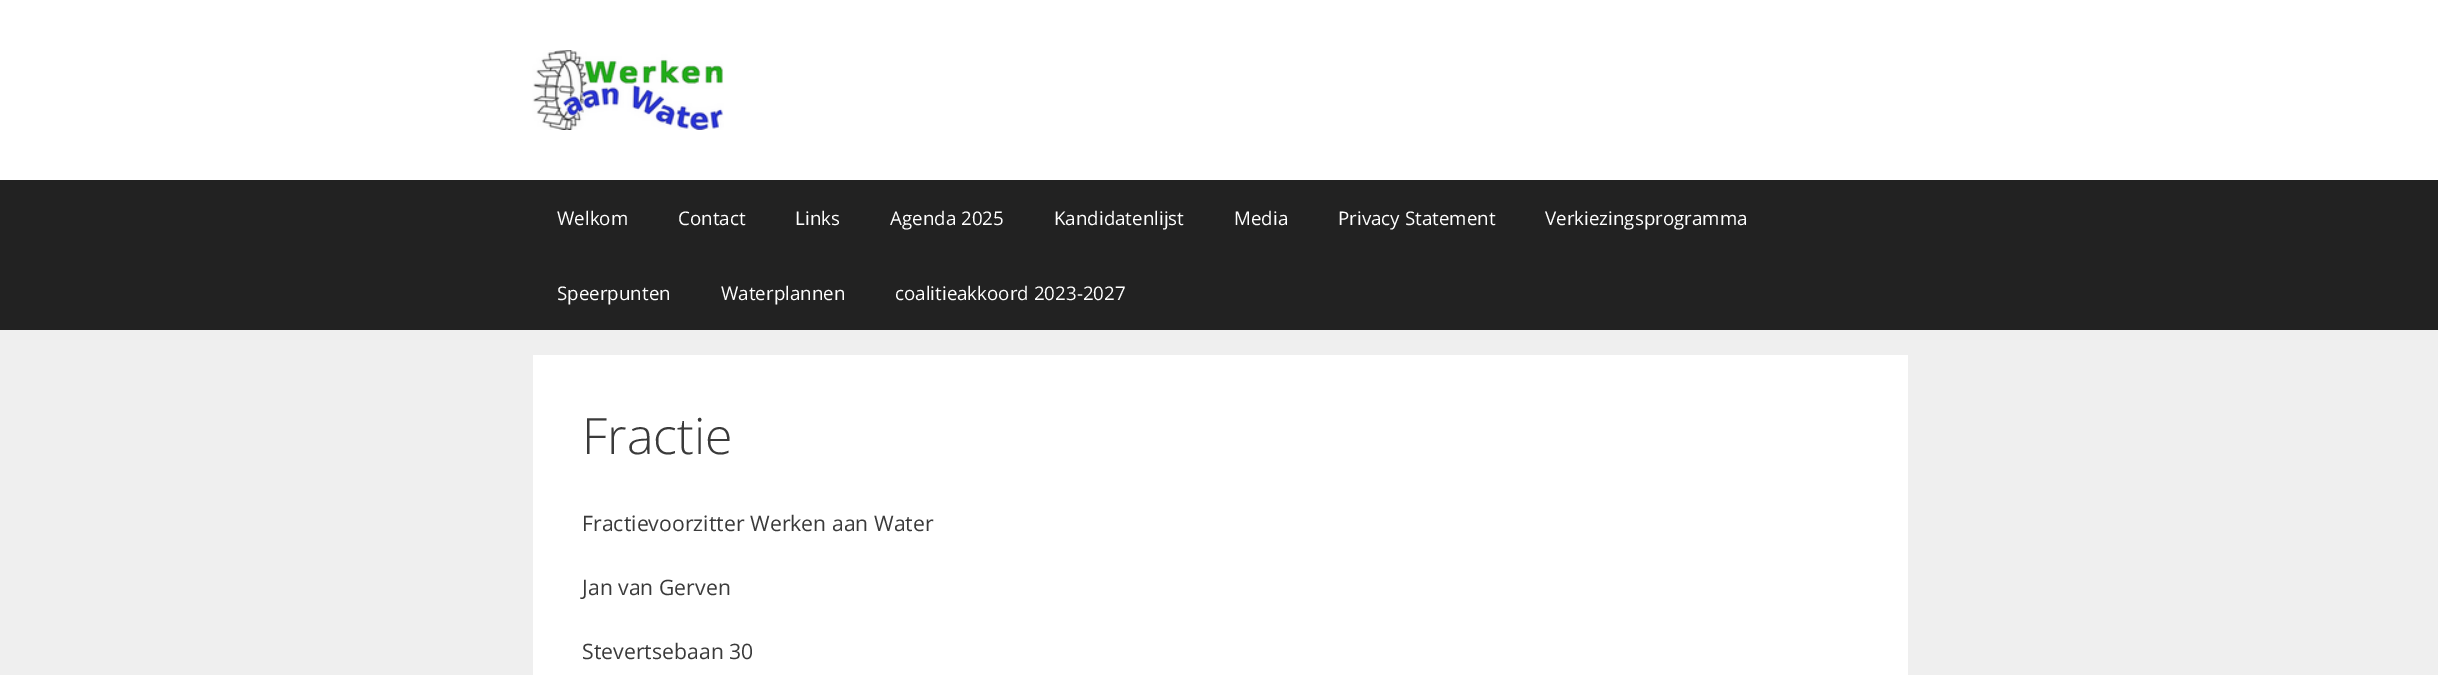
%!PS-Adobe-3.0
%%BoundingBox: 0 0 2438 675
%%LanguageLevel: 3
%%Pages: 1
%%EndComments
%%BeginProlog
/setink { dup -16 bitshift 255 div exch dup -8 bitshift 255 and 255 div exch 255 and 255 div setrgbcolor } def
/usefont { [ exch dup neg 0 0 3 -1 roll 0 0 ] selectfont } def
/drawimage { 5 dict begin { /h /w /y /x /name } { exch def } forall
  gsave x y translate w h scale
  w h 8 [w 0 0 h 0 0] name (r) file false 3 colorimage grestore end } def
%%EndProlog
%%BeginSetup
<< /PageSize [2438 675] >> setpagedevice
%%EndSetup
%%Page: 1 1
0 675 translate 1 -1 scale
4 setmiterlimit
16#EFEFEF setink
0 0 2438 675 rectfill
16#FFFFFF setink
0 0 2438 180 rectfill
(img1.raw) 532 50 192 80 drawimage
16#222222 setink
0 180 2438 150 rectfill
/OpenSans-Regular 18.75 usefont
16#FFFFFF setink
[
    [(Welkom) 557 225]
    [(Contact) 678 225]
    [(Links) 795 225]
    [(Agenda 2025) 890 225]
    [(Kandidatenlijst) 1054 225]
    [(Media) 1234 225]
    [(Privacy Statement) 1338 225]
    [(Verkiezingsprogramma) 1545 225]
    [(Speerpunten) 557 300]
    [(Waterplannen) 721 300]
    [(coalitieakkoord 2023-2027) 895 300]
] { aload pop moveto show } forall
533 355 1375 320 rectfill
/OpenSans-Light 50 usefont
16#3A3A3A setink
582 454 moveto (Fractie) show
/OpenSans-Regular 21.25 usefont
[
    [(Fractievoorzitter Werken aan Water) 582 531]
    [(Jan van Gerven) 582 595]
    [(Stevertsebaan 30) 582 659]
] { aload pop moveto show } forall
showpage
%%EOF
